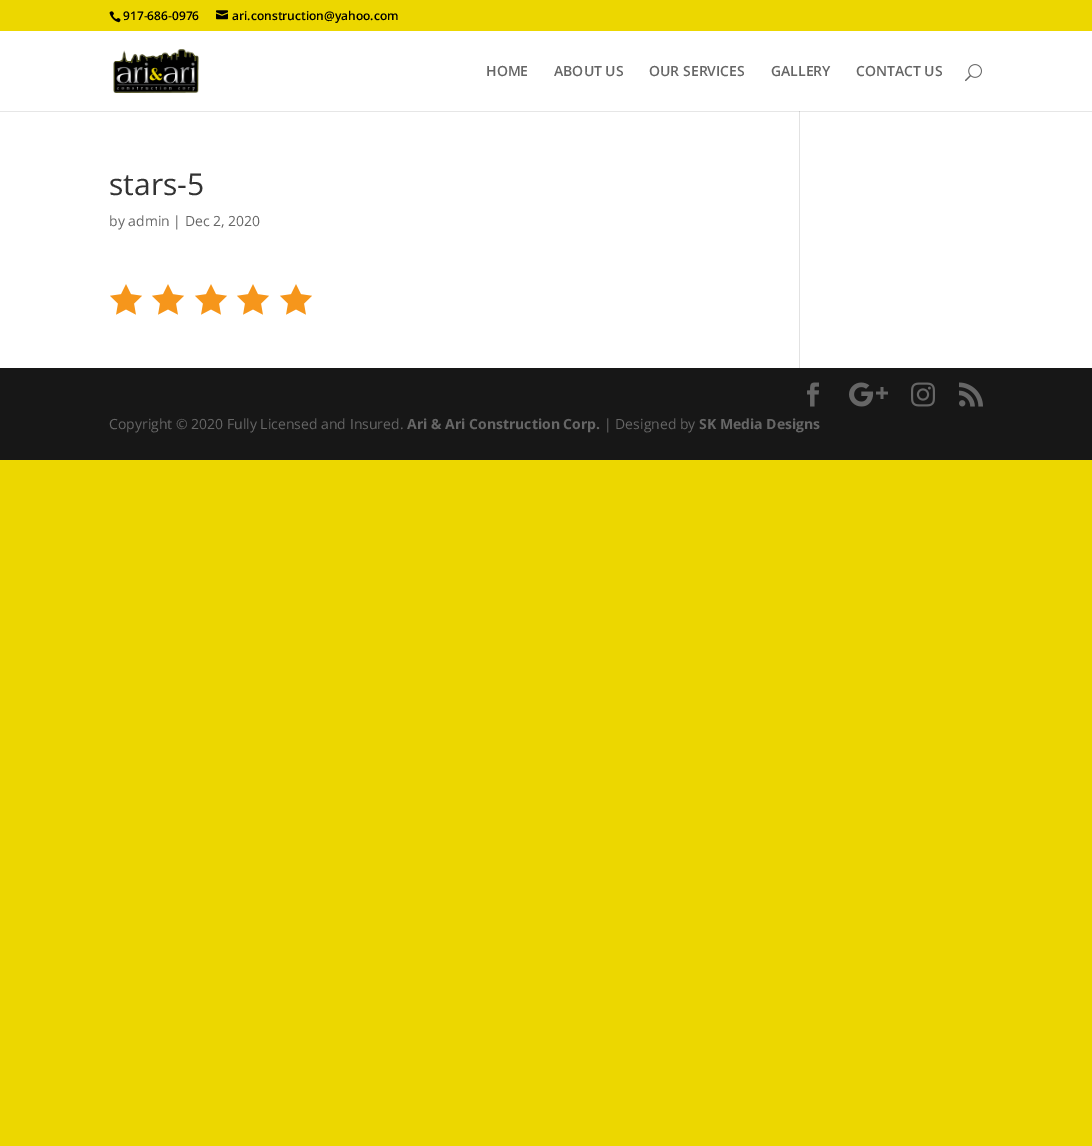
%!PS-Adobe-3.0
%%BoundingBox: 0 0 1092 1146
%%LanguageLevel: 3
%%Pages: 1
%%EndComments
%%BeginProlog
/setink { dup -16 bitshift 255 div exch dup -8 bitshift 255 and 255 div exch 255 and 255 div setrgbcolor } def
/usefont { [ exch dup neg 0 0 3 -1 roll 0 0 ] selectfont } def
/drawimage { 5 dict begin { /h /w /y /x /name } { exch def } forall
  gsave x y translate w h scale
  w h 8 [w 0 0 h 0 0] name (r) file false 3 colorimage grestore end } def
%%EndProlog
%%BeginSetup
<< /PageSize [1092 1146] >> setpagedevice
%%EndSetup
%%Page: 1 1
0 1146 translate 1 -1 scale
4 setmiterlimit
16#ECD700 setink
0 0 1092 1146 rectfill
(img1.raw) 109 11 12 12 drawimage
/OpenSans-SemiBold 12 usefont
16#000000 setink
123 20 moveto (917-686-0976) show
(img2.raw) 216 10 12 10 drawimage
232 20 moveto (ari.construction@yahoo.com) show
16#FFFFFF setink
0 31 1092 80 rectfill
(img3.raw) 113 49 86 44 drawimage
/OpenSans-SemiBold 14 usefont
16#666666 setink
[
    [(HOME) 486 76]
    [(ABOUT US) 554 76]
    [(OUR SERVICES) 649 76]
    [(GALLERY) 771 76]
    [(CONTACT US) 856 76]
] { aload pop moveto show } forall
(img4.raw) 965 64 17 18 drawimage
16#FFFFFF setink
0 112 1092 256 rectfill
16#E6E6E6 setink
0 111 1092 1 rectfill
/OpenSans-Regular 30 usefont
16#333333 setink
109 195 moveto (stars-5) show
/OpenSans-Regular 14 usefont
16#666666 setink
109 226 moveto (by admin | Dec 2, 2020) show
(img5.raw) 110 284 202 31 drawimage
[
    [799 111 1 257 16#E2E2E2]
    [799 111 1 1 16#CBCBCB]
    [0 368 1092 92 16#171717]
] { aload pop setink rectfill } forall
(img6.raw) 807 382 12 25 drawimage
(img7.raw) 849 382 39 25 drawimage
(img8.raw) 911 382 24 25 drawimage
(img9.raw) 959 382 24 25 drawimage
16#666666 setink
109 429 moveto (Copyright © 2020 Fully Licensed and Insured.) show
/OpenSans-Bold 14 usefont
407 429 moveto (Ari & Ari Construction Corp.) show
/OpenSans-Regular 14 usefont
604 429 moveto (| Designed by) show
/OpenSans-Bold 14 usefont
699 429 moveto (SK Media Designs) show
showpage
%%EOF
